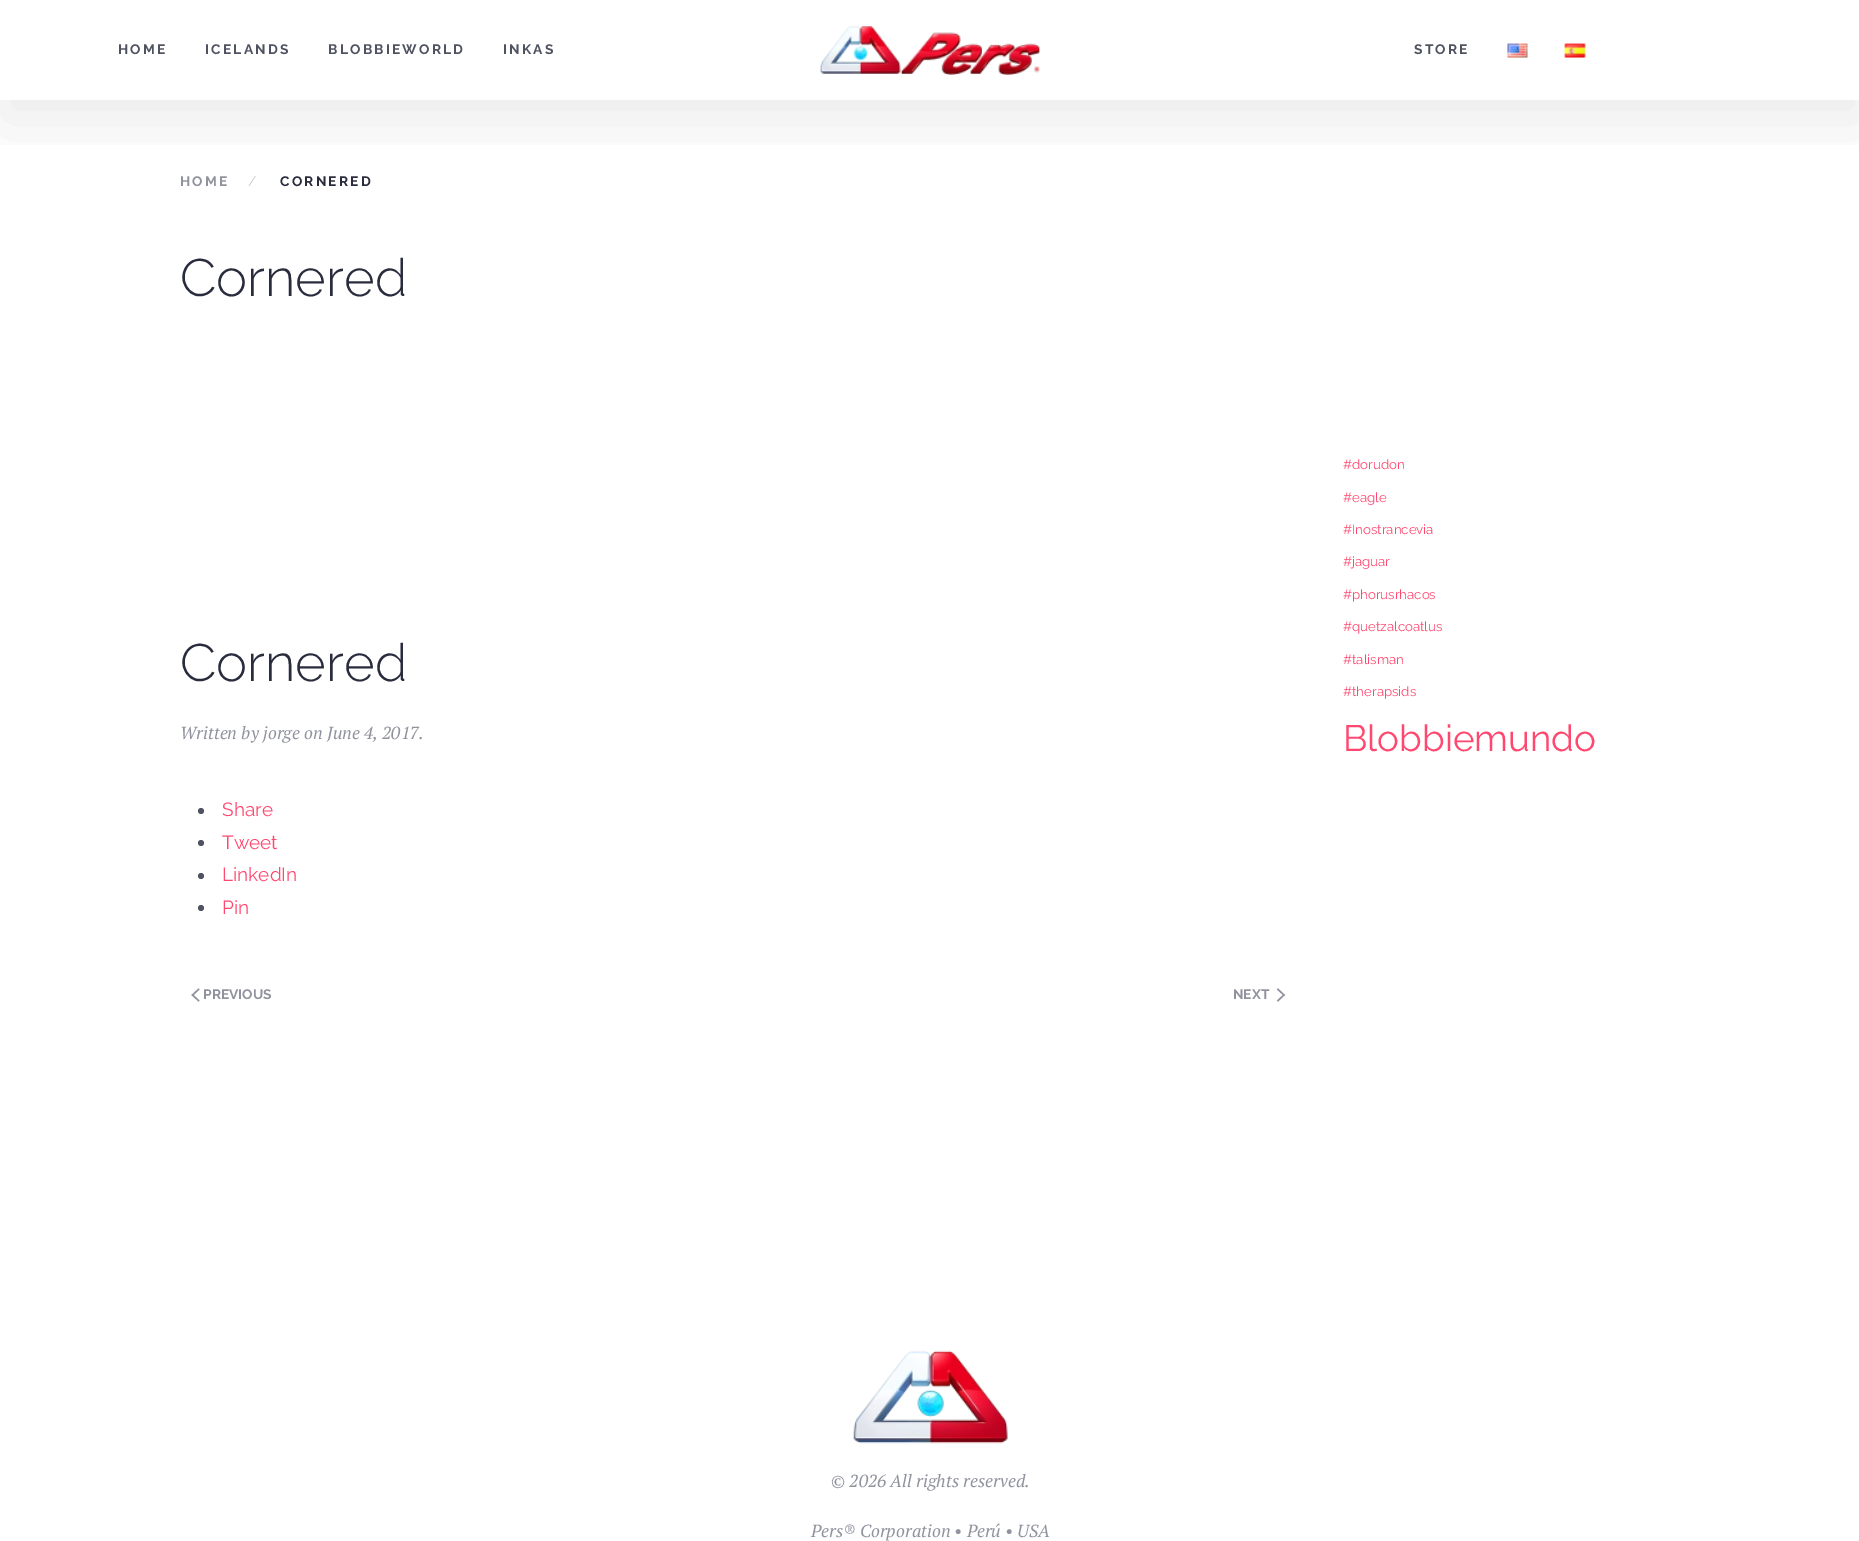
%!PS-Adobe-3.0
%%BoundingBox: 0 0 1859 1541
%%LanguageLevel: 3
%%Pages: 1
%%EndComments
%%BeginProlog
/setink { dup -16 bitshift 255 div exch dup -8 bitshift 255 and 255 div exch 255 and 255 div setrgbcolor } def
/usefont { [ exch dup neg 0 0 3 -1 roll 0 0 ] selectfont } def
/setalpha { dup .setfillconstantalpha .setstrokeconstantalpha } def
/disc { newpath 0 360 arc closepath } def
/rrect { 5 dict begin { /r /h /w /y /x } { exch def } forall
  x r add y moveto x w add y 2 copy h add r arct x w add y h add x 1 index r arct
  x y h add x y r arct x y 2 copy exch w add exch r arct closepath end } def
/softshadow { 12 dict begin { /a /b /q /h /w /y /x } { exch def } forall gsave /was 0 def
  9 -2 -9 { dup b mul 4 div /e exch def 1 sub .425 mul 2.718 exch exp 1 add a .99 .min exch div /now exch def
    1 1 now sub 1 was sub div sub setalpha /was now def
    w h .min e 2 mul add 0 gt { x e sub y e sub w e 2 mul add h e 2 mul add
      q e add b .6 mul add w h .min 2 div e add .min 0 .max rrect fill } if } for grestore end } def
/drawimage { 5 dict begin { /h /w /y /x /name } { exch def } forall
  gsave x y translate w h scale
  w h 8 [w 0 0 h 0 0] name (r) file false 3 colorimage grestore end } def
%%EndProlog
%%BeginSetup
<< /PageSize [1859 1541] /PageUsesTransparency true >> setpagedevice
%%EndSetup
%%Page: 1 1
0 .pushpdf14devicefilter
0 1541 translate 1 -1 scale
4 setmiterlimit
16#FFFFFF setink
0 0 1859 1541 rectfill
gsave
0 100 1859 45 rectclip
16#292C3D setink
3 19 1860 100 0 31 0.1 softshadow
grestore
/Raleway-Thin 13.75 usefont
16#4F5260 setink
118 54 moveto 2.25 0 (HOME) ashow
205 54 moveto 2.25 0 (ICELANDS) ashow
328 54 moveto 2.25 0 (BLOBBIEWORLD) ashow
503 54 moveto 2.25 0 (INKAS) ashow
(img1.raw) 820 26 220 49 drawimage
1414 54 moveto 2.25 0 (STORE) ashow
(img2.raw) 1507 43 21 15 drawimage
(img3.raw) 1564 43 22 15 drawimage
16#90929D setink
180 186 moveto 2.25 0 (HOME) ashow
/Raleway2-Thin 13.75 usefont
16#C8C9CE setink
248 186 moveto (/) show
/Raleway-Thin 13.75 usefont
16#292C3D setink
280 186 moveto 2.25 0 (CORNERED) ashow
/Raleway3-Thin 52.5 usefont
180 296 moveto (Cornered) show
/Raleway2-Thin 13.25 usefont
16#FF4870 setink
[
    [(#dorudon) 1343 469]
    [(#eagle) 1343 502]
    [(#Inostrancevia) 1343 534]
    [(#jaguar) 1343 566]
    [(#phorusrhacos) 1343 599]
    [(#quetzalcoatlus) 1343 631]
    [(#talisman) 1343 664]
    [(#therapsids) 1343 696]
] { aload pop moveto show } forall
/Raleway2-Thin 36.75 usefont
1343 751 moveto (Blobbiemundo) show
/Raleway3-Thin 52.5 usefont
16#292C3D setink
180 681 moveto (Cornered) show
/PTSerif-Italic 17.5 usefont
16#90929D setink
180 739 moveto (Written by jorge on June 4, 2017.) show
16#4F5260 setink
201 811 3 disc fill
/Raleway2-Thin 19 usefont
16#FF4870 setink
222 816 moveto (Share) show
16#4F5260 setink
201 843 3 disc fill
16#FF4870 setink
222 849 moveto (Tweet) show
16#4F5260 setink
201 876 3 disc fill
16#FF4870 setink
222 881 moveto (LinkedIn) show
16#4F5260 setink
201 908 3 disc fill
16#FF4870 setink
222 914 moveto (Pin) show
16#90929D setink
1.5 setlinewidth
199 989 moveto 192.5 995 lineto 199 1001 lineto stroke
/Raleway-Thin 13.75 usefont
203 999 moveto (PREVIOUS) show
1233 999 moveto (NEXT) show
1277.5 989 moveto 1284 995 lineto 1277.5 1001 lineto stroke
(img4.raw) 853 1350 155 94 drawimage
/PTSerif-Italic 17.5 usefont
831 1487 moveto (© 2026 All rights reserved.) show
811 1537 moveto (Pers® Corporation • Perú • USA) show
.poppdf14devicefilter showpage
%%EOF
